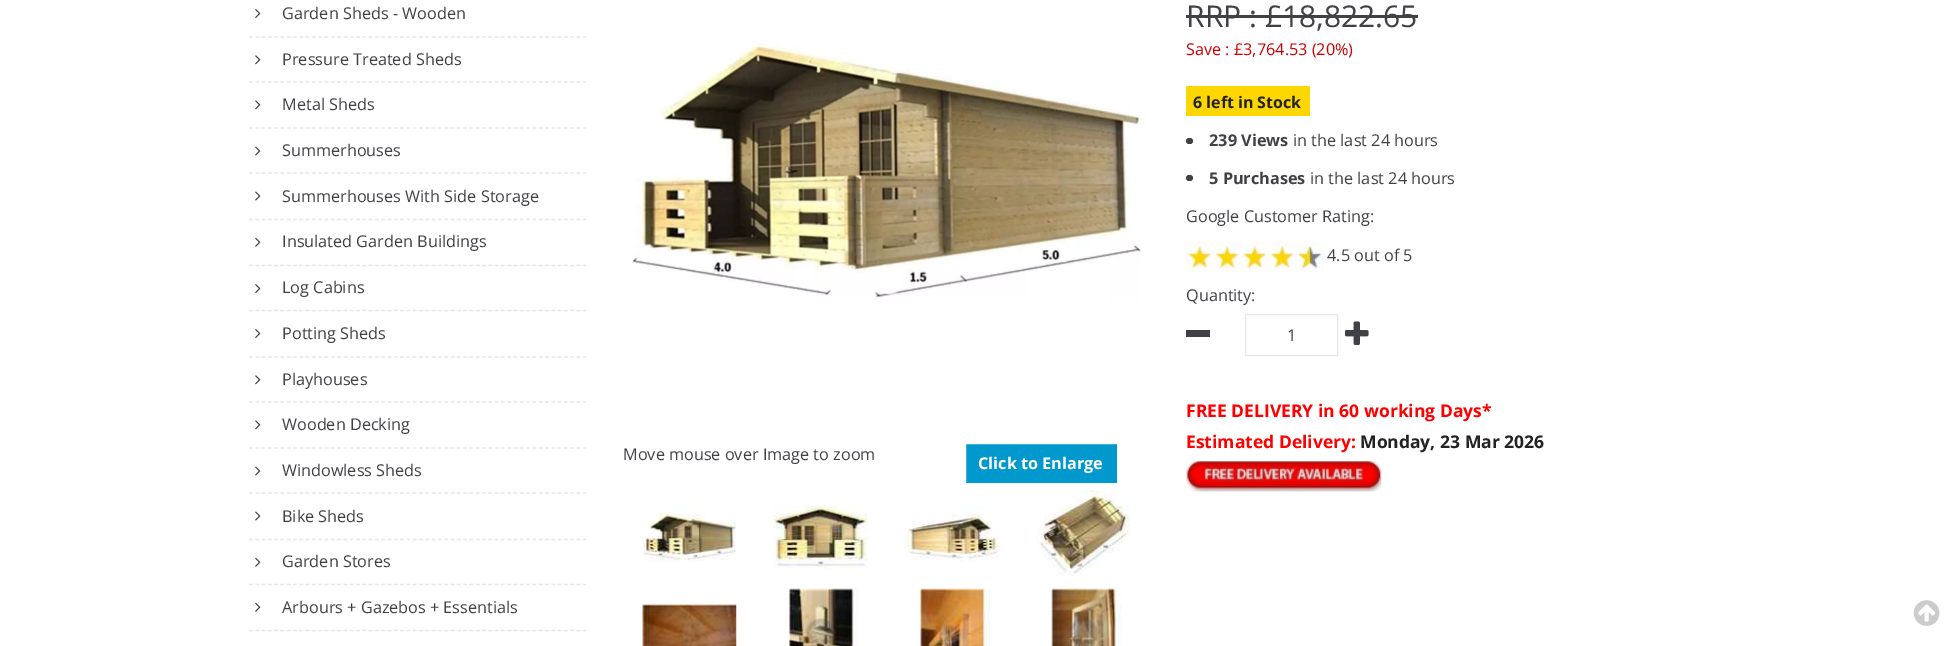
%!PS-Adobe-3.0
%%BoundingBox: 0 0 1958 646
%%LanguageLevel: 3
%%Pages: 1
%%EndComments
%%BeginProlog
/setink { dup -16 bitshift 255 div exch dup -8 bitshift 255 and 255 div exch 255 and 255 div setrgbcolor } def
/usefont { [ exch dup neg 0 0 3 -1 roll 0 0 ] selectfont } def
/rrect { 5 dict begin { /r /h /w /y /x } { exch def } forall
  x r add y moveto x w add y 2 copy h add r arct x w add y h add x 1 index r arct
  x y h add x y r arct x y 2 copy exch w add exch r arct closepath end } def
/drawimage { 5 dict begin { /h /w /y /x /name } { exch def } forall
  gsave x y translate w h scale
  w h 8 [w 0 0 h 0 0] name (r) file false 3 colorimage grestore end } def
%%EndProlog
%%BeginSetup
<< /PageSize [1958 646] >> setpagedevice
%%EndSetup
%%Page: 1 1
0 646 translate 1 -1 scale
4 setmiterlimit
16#FFFFFF setink
0 0 1958 646 rectfill
16#E7E7E7 setink
1.2 setlinewidth
[3.75 2.55] 0 setdash
249 37 moveto 586 37 lineto stroke
(img1.raw) 255 9 6 9 drawimage
/OpenSans-Regular 16.25 usefont
16#404145 setink
282 19 moveto (Garden Sheds - Wooden) show
16#E7E7E7 setink
249 82 moveto 586 82 lineto stroke
(img2.raw) 255 55 6 10 drawimage
16#404145 setink
282 65 moveto (Pressure Treated Sheds) show
16#E7E7E7 setink
249 128 moveto 586 128 lineto stroke
(img2.raw) 255 100 6 10 drawimage
16#404145 setink
282 110 moveto (Metal Sheds) show
16#E7E7E7 setink
249 173 moveto 586 173 lineto stroke
(img3.raw) 255 146 6 10 drawimage
16#404145 setink
282 156 moveto (Summerhouses) show
16#E7E7E7 setink
249 219.5 moveto 586 219.5 lineto stroke
(img3.raw) 255 191 6 10 drawimage
16#404145 setink
282 202 moveto (Summerhouses With Side Storage) show
16#E7E7E7 setink
249 265.5 moveto 586 265.5 lineto stroke
(img4.raw) 255 237 6 10 drawimage
16#404145 setink
282 247 moveto (Insulated Garden Buildings) show
16#E7E7E7 setink
249 310.5 moveto 586 310.5 lineto stroke
(img1.raw) 255 284 6 9 drawimage
16#404145 setink
282 293 moveto (Log Cabins) show
16#E7E7E7 setink
249 357 moveto 586 357 lineto stroke
(img1.raw) 255 329 6 9 drawimage
16#404145 setink
282 339 moveto (Potting Sheds) show
16#E7E7E7 setink
249 402 moveto 586 402 lineto stroke
(img2.raw) 255 375 6 10 drawimage
16#404145 setink
282 385 moveto (Playhouses) show
16#E7E7E7 setink
249 448 moveto 586 448 lineto stroke
(img2.raw) 255 420 6 10 drawimage
16#404145 setink
282 430 moveto (Wooden Decking) show
16#E7E7E7 setink
249 493 moveto 586 493 lineto stroke
(img3.raw) 255 466 6 10 drawimage
16#404145 setink
282 476 moveto (Windowless Sheds) show
16#E7E7E7 setink
249 539.5 moveto 586 539.5 lineto stroke
(img3.raw) 255 511 6 10 drawimage
16#404145 setink
282 522 moveto (Bike Sheds) show
16#E7E7E7 setink
249 584.5 moveto 586 584.5 lineto stroke
(img4.raw) 255 557 6 10 drawimage
16#404145 setink
282 567 moveto (Garden Stores) show
16#E7E7E7 setink
249 630.5 moveto 586 630.5 lineto stroke
(img4.raw) 255 602 6 10 drawimage
16#404145 setink
282 613 moveto (Arbours + Gazebos + Essentials) show
/OpenSans-Regular 30 usefont
1186 27 moveto (RRP : £18,822.65) show
1186 15 232 3 rectfill
/OpenSans-Regular 16.25 usefont
16#CC0000 setink
1186 55 moveto (Save : £3,764.53 \(20%\)) show
16#FFD700 setink
1186 86 124 30 rectfill
/OpenSans-Bold 16 usefont
16#222222 setink
1193 108 moveto (6 left in Stock) show
16#404145 setink
1186 138 7 6 3 rrect fill
/OpenSans-Bold 16.25 usefont
1209 146 moveto (239 Views) show
/OpenSans-Regular 16.25 usefont
1293 146 moveto (in the last 24 hours) show
1186 175 7 6 3 rrect fill
/OpenSans-Bold 16.25 usefont
1209 184 moveto (5 Purchases) show
/OpenSans-Regular 16.25 usefont
1310 184 moveto (in the last 24 hours) show
1186 222 moveto (Google Customer Rating:) show
(img5.raw) 1186 241 138 32 drawimage
1327 261 moveto (4.5 out of 5) show
1186 301 moveto (Quantity:) show
1186 330 24 7 rectfill
16#E7E7E7 setink
1 setlinewidth
[] 0 setdash
1245.5 314.5 92 41 rectstroke
16#404145 setink
1287 341 moveto (1) show
(img6.raw) 1345 321 24 24 drawimage
/OpenSans-Bold 17.5 usefont
16#FF0000 setink
1186 417 moveto (FREE DELIVERY in 60 working Days*) show
1186 448 moveto (Estimated Delivery:) show
16#222222 setink
1360 448 moveto (Monday, 23 Mar 2026) show
(img7.raw) 1186 461 196 31 drawimage
(img8.raw) 632 42 510 259 drawimage
/OpenSans-Regular 16.25 usefont
16#404145 setink
623 460 moveto (Move mouse over Image to zoom) show
16#0198CD setink
965.5 443.5 moveto 1117.5 443.5 lineto 1117.5 483.5 lineto 965.5 483.5 lineto closepath gsave fill grestore
16#F9F9F9 setink
stroke
/OpenSans-Bold 16.25 usefont
16#FFFFFF setink
978 469 moveto (Click to Enlarge) show
(img9.raw) 642 506 95 55 drawimage
(img10.raw) 773 505 95 64 drawimage
(img11.raw) 905 506 94 55 drawimage
(img12.raw) 1036 490 94 86 drawimage
(img13.raw) 642 603 95 43 drawimage
(img14.raw) 788 588 71 58 drawimage
(img15.raw) 919 588 71 58 drawimage
(img16.raw) 1051 588 71 58 drawimage
(img17.raw) 1913 600 27 26 drawimage
showpage
%%EOF
